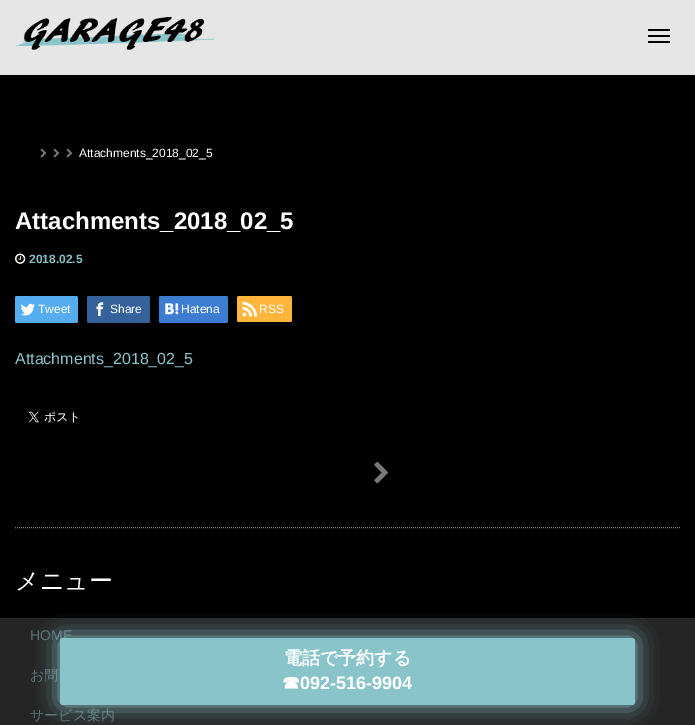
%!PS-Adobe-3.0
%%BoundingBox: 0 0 695 725
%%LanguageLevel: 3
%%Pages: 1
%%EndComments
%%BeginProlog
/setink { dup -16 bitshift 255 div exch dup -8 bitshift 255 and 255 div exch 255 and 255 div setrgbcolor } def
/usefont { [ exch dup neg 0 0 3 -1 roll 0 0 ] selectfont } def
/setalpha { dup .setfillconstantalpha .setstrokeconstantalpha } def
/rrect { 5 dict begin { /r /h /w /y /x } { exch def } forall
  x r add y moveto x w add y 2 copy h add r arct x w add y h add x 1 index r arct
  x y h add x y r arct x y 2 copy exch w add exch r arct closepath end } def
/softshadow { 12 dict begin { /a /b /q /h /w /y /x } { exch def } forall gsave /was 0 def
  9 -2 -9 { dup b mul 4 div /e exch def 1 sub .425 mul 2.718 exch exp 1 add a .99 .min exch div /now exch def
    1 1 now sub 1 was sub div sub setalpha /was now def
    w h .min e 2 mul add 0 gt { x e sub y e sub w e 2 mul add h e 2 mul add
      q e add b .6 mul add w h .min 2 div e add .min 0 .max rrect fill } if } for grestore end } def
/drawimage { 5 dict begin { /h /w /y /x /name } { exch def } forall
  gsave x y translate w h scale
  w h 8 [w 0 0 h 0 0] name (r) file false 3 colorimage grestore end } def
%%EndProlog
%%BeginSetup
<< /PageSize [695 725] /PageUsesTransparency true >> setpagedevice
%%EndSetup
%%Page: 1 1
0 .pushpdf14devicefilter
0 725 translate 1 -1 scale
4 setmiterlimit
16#000000 setink
0 0 695 725 rectfill
16#252525 setink
0 618 695 107 rectfill
16#E6E6E6 setink
0 0 695 75 rectfill
(img1.raw) 15 17 200 33 drawimage
16#000000 setink
648 29 22 2 1 rrect fill
648 35 22 2 1 rrect fill
648 41 22 2 1 rrect fill
(img2.raw) 40 148 7 10 drawimage
(img2.raw) 53 148 7 10 drawimage
(img2.raw) 66 148 7 10 drawimage
/LiberationSans-Regular 12 usefont
16#FFFFFF setink
79 157 moveto (Attachments_2018_02_5) show
/LiberationSans-Bold 24 usefont
15 229 moveto (Attachments_2018_02_5) show
(img3.raw) 15 253 11 11 drawimage
/LiberationSans-Bold 12 usefont
16#85BEC4 setink
29 263 moveto (2018.02.5) show
16#55ACEE setink
15 296 63 27 2 rrect fill
(img4.raw) 20 303 15 13 drawimage
/LiberationSans-Regular 12 usefont
16#FFFFFF setink
38 313 moveto (Tweet) show
16#35629A setink
87 296 63 27 2 rrect fill
(img5.raw) 96 302 8 14 drawimage
16#FFFFFF setink
110 313 moveto (Share) show
16#3C7DD1 setink
159 296 69 27 2 rrect fill
(img6.raw) 165 303 14 12 drawimage
16#FFFFFF setink
181 313 moveto (Hatena) show
16#FFB53C setink
237 296 55 26 2 rrect fill
(img7.raw) 242 301 16 16 drawimage
16#FFFFFF setink
259 313 moveto (RSS) show
/LiberationSans-Regular 16 usefont
16#89C4CA setink
15 364 moveto (Attachments_2018_02_5) show
(img8.raw) 28 411 50 12 drawimage
(img9.raw) 374 461 14 23 drawimage
16#808080 setink
[1 1] 0 setdash
15 527.5 moveto 680 527.5 lineto stroke
/WenQuanYiZenHei-Medium 24 usefont
16#FFFFFF setink
15 589 moveto (メニュー) show
/LiberationSans-Regular 14 usefont
16#5C7476 setink
30 640 moveto (HOME) show
/WenQuanYiZenHei-Medium 14 usefont
30 680 moveto (お問) show
30 720 moveto (サービス案内) show
16#89C4CA setink
60 638 575 67 3 11 1 softshadow
60 638 575 67 3 rrect fill
/WenQuanYiZenHei-Bold 18 usefont
16#FFFFFF setink
284 664 moveto (電話で予約する) show
282 689 moveto (☎) show
/LiberationSans-Bold 18 usefont
300 689 moveto (092-516-9904) show
.poppdf14devicefilter showpage
%%EOF
